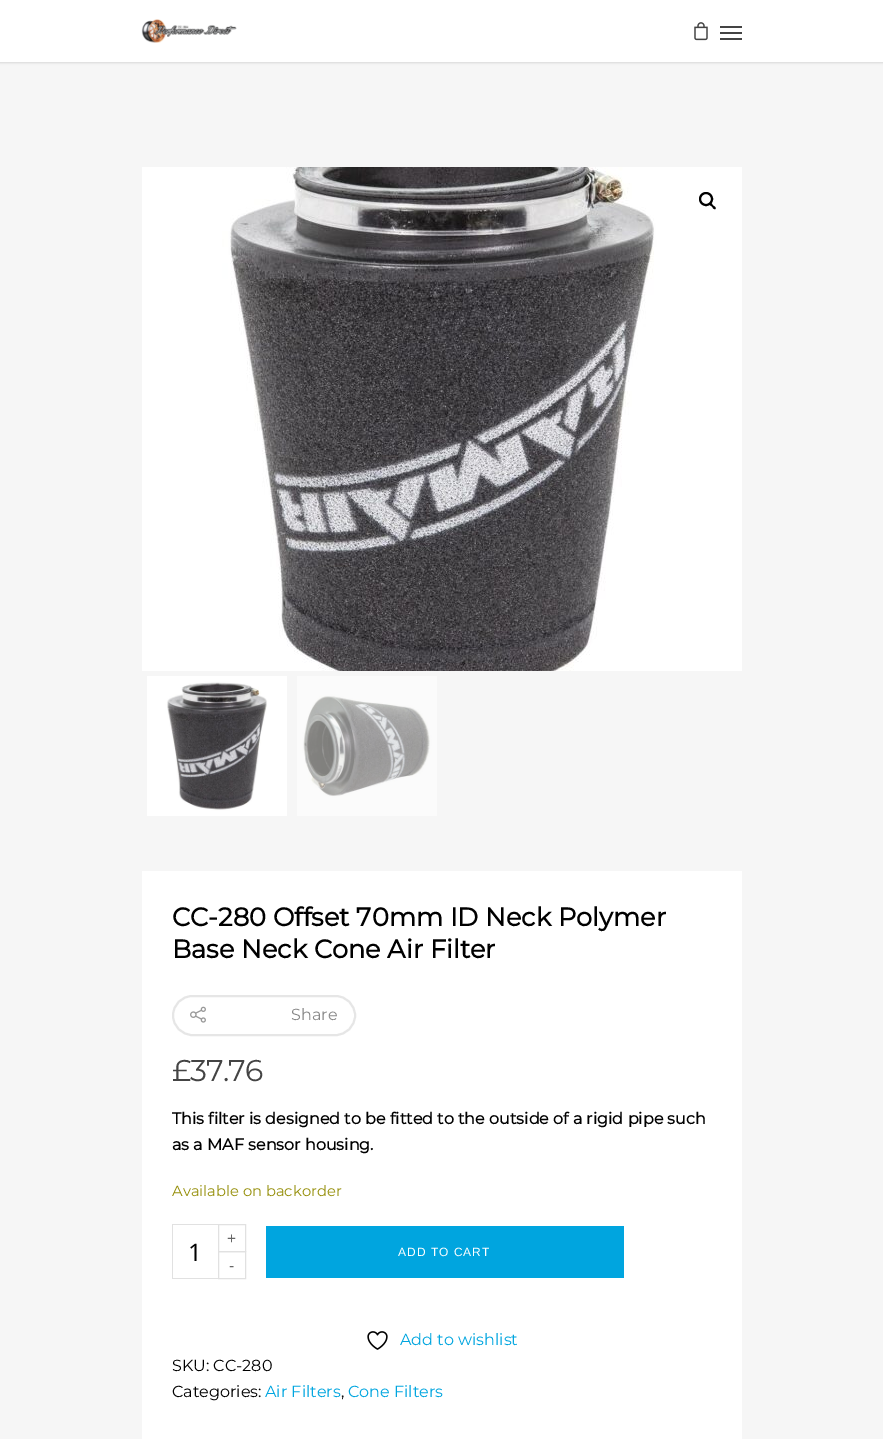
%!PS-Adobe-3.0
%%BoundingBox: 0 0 883 1439
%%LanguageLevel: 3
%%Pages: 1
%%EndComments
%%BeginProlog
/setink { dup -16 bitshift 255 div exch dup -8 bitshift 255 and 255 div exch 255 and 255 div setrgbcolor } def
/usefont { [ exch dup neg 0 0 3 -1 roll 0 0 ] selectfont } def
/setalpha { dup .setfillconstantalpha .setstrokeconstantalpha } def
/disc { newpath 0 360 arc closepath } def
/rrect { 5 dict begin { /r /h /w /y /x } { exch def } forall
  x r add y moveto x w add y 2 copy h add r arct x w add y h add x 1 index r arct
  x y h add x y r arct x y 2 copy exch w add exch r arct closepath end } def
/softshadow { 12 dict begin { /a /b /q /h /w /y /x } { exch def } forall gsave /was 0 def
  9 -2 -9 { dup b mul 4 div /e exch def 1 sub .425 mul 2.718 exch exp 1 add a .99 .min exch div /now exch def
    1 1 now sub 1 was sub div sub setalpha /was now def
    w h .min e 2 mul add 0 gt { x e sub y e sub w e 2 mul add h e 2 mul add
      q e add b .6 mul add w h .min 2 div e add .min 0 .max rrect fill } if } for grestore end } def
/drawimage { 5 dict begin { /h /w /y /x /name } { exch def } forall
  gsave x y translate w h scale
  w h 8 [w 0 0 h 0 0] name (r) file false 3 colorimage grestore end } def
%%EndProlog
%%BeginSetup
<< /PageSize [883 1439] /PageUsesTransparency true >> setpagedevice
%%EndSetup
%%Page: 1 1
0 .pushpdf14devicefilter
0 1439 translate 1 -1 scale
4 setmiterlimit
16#F6F6F6 setink
0 0 883 1439 rectfill
16#000000 setink
0 0 883 62 0 1.5 0.22 softshadow
16#FFFFFF setink
0 0 883 62 rectfill
(img1.raw) 141 19 96 24 drawimage
(img2.raw) 694 22 14 19 drawimage
[
    [720 26 22 2 16#444444]
    [720 38 22 2 16#444444]
    [720 32 22 2 16#444444]
] { aload pop setink rectfill } forall
(img3.raw) 142 167 600 504 drawimage
16#000000 setink
2 setlinewidth
706 199 6 disc stroke
709.5 203 moveto 711 202 712.5 204.5 713 205.5 curveto 714 206 716.5 207.5 715.5 209 curveto 714 210 712.5 207.5 712 206.5 curveto 711 206 708.5 204.5 709.5 203 curveto closepath fill
(img4.raw) 147 676 140 140 drawimage
(img5.raw) 297 676 140 140 drawimage
16#FFFFFF setink
142 871 600 568 rectfill
/Montserrat-Bold 25.6 usefont
16#000000 setink
172 926 moveto (CC-280 Offset 70mm ID Neck Polymer) show
172 958 moveto (Base Neck Cone Air Filter) show
16#E6E6E6 setink
173 996 182 39 19.5 rrect stroke
(img6.raw) 190 1006 16 17 drawimage
/Montserrat-Thin 16 usefont
16#888888 setink
291 1020 moveto (Share) show
/Montserrat-Thin 30 usefont
16#444444 setink
172 1081 moveto -1 0 (£37.76) ashow
/Montserrat-Bold 16 usefont
16#000000 setink
172 1124 moveto (This filter is designed to be fitted to the outside of a rigid pipe such) show
172 1150 moveto (as a MAF sensor housing.) show
/Montserrat-Thin 14.75 usefont
16#958E09 setink
172 1196 moveto (Available on backorder) show
16#E1E1E1 setink
1 setlinewidth
218.5 1251.5 27 27 rectstroke
218.5 1224.5 27 27 rectstroke
/OpenSans-Regular 16 usefont
16#666666 setink
227 1244 moveto (+) show
[
    [172 1224 46 1 16#E1E1E1]
    [172 1278 46 1 16#E1E1E1]
    [172 1224 1 55 16#E1E1E1]
] { aload pop setink rectfill } forall
/OpenSans-Regular 24 usefont
16#000000 setink
188 1261 moveto (1) show
/OpenSans-Regular 16 usefont
16#666666 setink
229 1271 moveto (-) show
16#00A5DF setink
266 1226 358 52 rectfill
/LiberationSans-Regular 12 usefont
16#FFFFFF setink
398 1256 moveto 1 0 (ADD TO CART) ashow
(img7.raw) 367 1331 21 19 drawimage
/Montserrat-Thin 16 usefont
16#00A5DF setink
400 1345 moveto (Add to wishlist) show
16#000000 setink
172 1371 moveto (SKU: CC-280) show
172 1397 moveto (Categories:) show
16#00A5DF setink
265 1397 moveto (Air Filters) show
16#000000 setink
341 1397 moveto (,) show
16#00A5DF setink
348 1397 moveto (Cone Filters) show
.poppdf14devicefilter showpage
%%EOF
